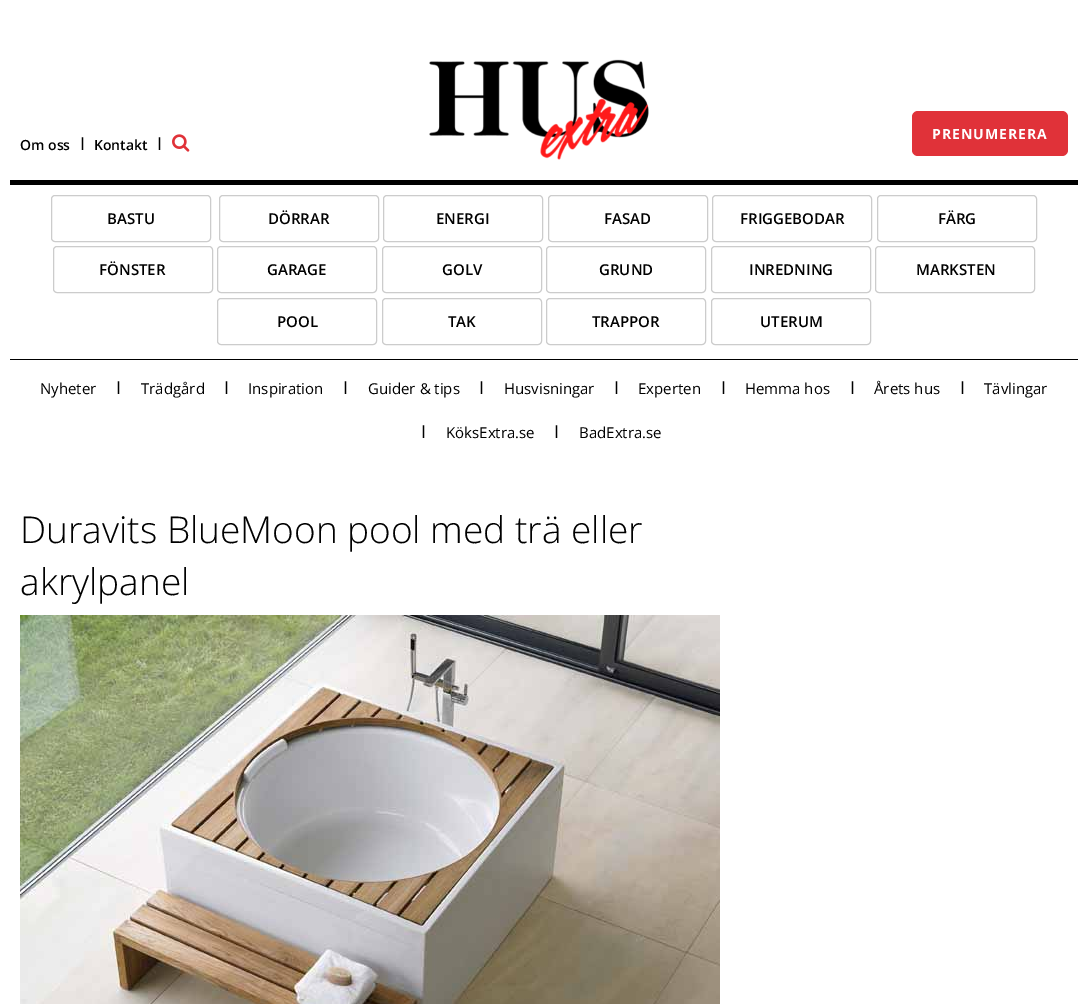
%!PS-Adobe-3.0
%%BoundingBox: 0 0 1088 1004
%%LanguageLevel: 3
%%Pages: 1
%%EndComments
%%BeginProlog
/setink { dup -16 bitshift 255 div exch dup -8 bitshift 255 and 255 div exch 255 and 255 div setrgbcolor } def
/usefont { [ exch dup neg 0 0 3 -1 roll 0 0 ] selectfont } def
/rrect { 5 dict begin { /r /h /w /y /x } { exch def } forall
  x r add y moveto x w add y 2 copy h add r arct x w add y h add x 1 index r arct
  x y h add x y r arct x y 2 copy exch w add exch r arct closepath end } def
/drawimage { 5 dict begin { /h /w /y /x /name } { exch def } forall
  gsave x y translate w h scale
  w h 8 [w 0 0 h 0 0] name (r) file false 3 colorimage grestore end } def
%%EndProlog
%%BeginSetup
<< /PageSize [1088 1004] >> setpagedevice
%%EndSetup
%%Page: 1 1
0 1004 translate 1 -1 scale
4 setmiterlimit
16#FFFFFF setink
0 0 1088 1004 rectfill
(img1.raw) 429 59 220 101 drawimage
16#E03239 setink
912 111 156 45 6 rrect fill
/OpenSans-Bold 14 usefont
16#FFFFFF setink
932 139 moveto 1 0 (PRENUMERERA) ashow
/OpenSans-SemiBold 14 usefont
16#000000 setink
20 150 moveto (Om oss) show
/OpenSans-Regular 18 usefont
80 150 moveto (I) show
/OpenSans-SemiBold 14 usefont
94 150 moveto (Kontakt) show
/OpenSans-Regular 18 usefont
157 150 moveto (I) show
(img2.raw) 172 134 18 18 drawimage
10 180 1068 5 rectfill
10 359 1068 1 rectfill
16#CCCCCC setink
51.5 195.5 159 46 3.5 rrect stroke
/OpenSans-SemiBold 15 usefont
16#000000 setink
107 224 moveto (BASTU) show
16#CCCCCC setink
219.5 195.5 159 46 3.5 rrect stroke
16#000000 setink
268 224 moveto (DÖRRAR) show
16#CCCCCC setink
383.5 195.5 159 46 3.5 rrect stroke
16#000000 setink
436 224 moveto (ENERGI) show
16#CCCCCC setink
548.5 195.5 159 46 3.5 rrect stroke
16#000000 setink
604 224 moveto (FASAD) show
16#CCCCCC setink
712.5 195.5 159 46 3.5 rrect stroke
16#000000 setink
740 224 moveto (FRIGGEBODAR) show
16#CCCCCC setink
877.5 195.5 159 46 3.5 rrect stroke
16#000000 setink
938 224 moveto (FÄRG) show
16#CCCCCC setink
53.5 246.5 159 46 3.5 rrect stroke
16#000000 setink
99 275 moveto (FÖNSTER) show
16#CCCCCC setink
217.5 246.5 159 46 3.5 rrect stroke
16#000000 setink
267 275 moveto (GARAGE) show
16#CCCCCC setink
382.5 246.5 159 46 3.5 rrect stroke
16#000000 setink
442 275 moveto (GOLV) show
16#CCCCCC setink
546.5 246.5 159 46 3.5 rrect stroke
16#000000 setink
599 275 moveto (GRUND) show
16#CCCCCC setink
711.5 246.5 159 46 3.5 rrect stroke
16#000000 setink
749 275 moveto (INREDNING) show
16#CCCCCC setink
875.5 246.5 159 46 3.5 rrect stroke
16#000000 setink
916 275 moveto (MARKSTEN) show
16#CCCCCC setink
217.5 298.5 159 46 3.5 rrect stroke
16#000000 setink
277 327 moveto (POOL) show
16#CCCCCC setink
382.5 298.5 159 46 3.5 rrect stroke
16#000000 setink
448 327 moveto (TAK) show
16#CCCCCC setink
546.5 298.5 159 46 3.5 rrect stroke
16#000000 setink
592 327 moveto (TRAPPOR) show
16#CCCCCC setink
711.5 298.5 159 46 3.5 rrect stroke
16#000000 setink
760 327 moveto (UTERUM) show
/OpenSans-Regular 15 usefont
40 394 moveto (Nyheter) show
/OpenSans-Regular 18 usefont
116 394 moveto (I) show
/OpenSans-Regular 15 usefont
141 394 moveto (Trädgård) show
/OpenSans-Regular 18 usefont
224 394 moveto (I) show
/OpenSans-Regular 15 usefont
248 394 moveto (Inspiration) show
/OpenSans-Regular 18 usefont
343 394 moveto (I) show
/OpenSans-Regular 15 usefont
368 394 moveto (Guider & tips) show
/OpenSans-Regular 18 usefont
479 394 moveto (I) show
/OpenSans-Regular 15 usefont
504 394 moveto (Husvisningar) show
/OpenSans-Regular 18 usefont
614 394 moveto (I) show
/OpenSans-Regular 15 usefont
638 394 moveto (Experten) show
/OpenSans-Regular 18 usefont
721 394 moveto (I) show
/OpenSans-Regular 15 usefont
745 394 moveto (Hemma hos) show
/OpenSans-Regular 18 usefont
850 394 moveto (I) show
/OpenSans-Regular 15 usefont
874 394 moveto (Årets hus) show
/OpenSans-Regular 18 usefont
960 394 moveto (I) show
/OpenSans-Regular 15 usefont
984 394 moveto (Tävlingar) show
/OpenSans-Regular 18 usefont
421 438 moveto (I) show
/OpenSans-Regular 15 usefont
446 438 moveto (KöksExtra.se) show
/OpenSans-Regular 18 usefont
554 438 moveto (I) show
/OpenSans-Regular 15 usefont
579 438 moveto (BadExtra.se) show
/OpenSans-Light 37 usefont
20 543 moveto (Duravits BlueMoon pool med trä eller) show
20 595 moveto (akrylpanel) show
(img3.raw) 20 615 700 389 drawimage
showpage
%%EOF
